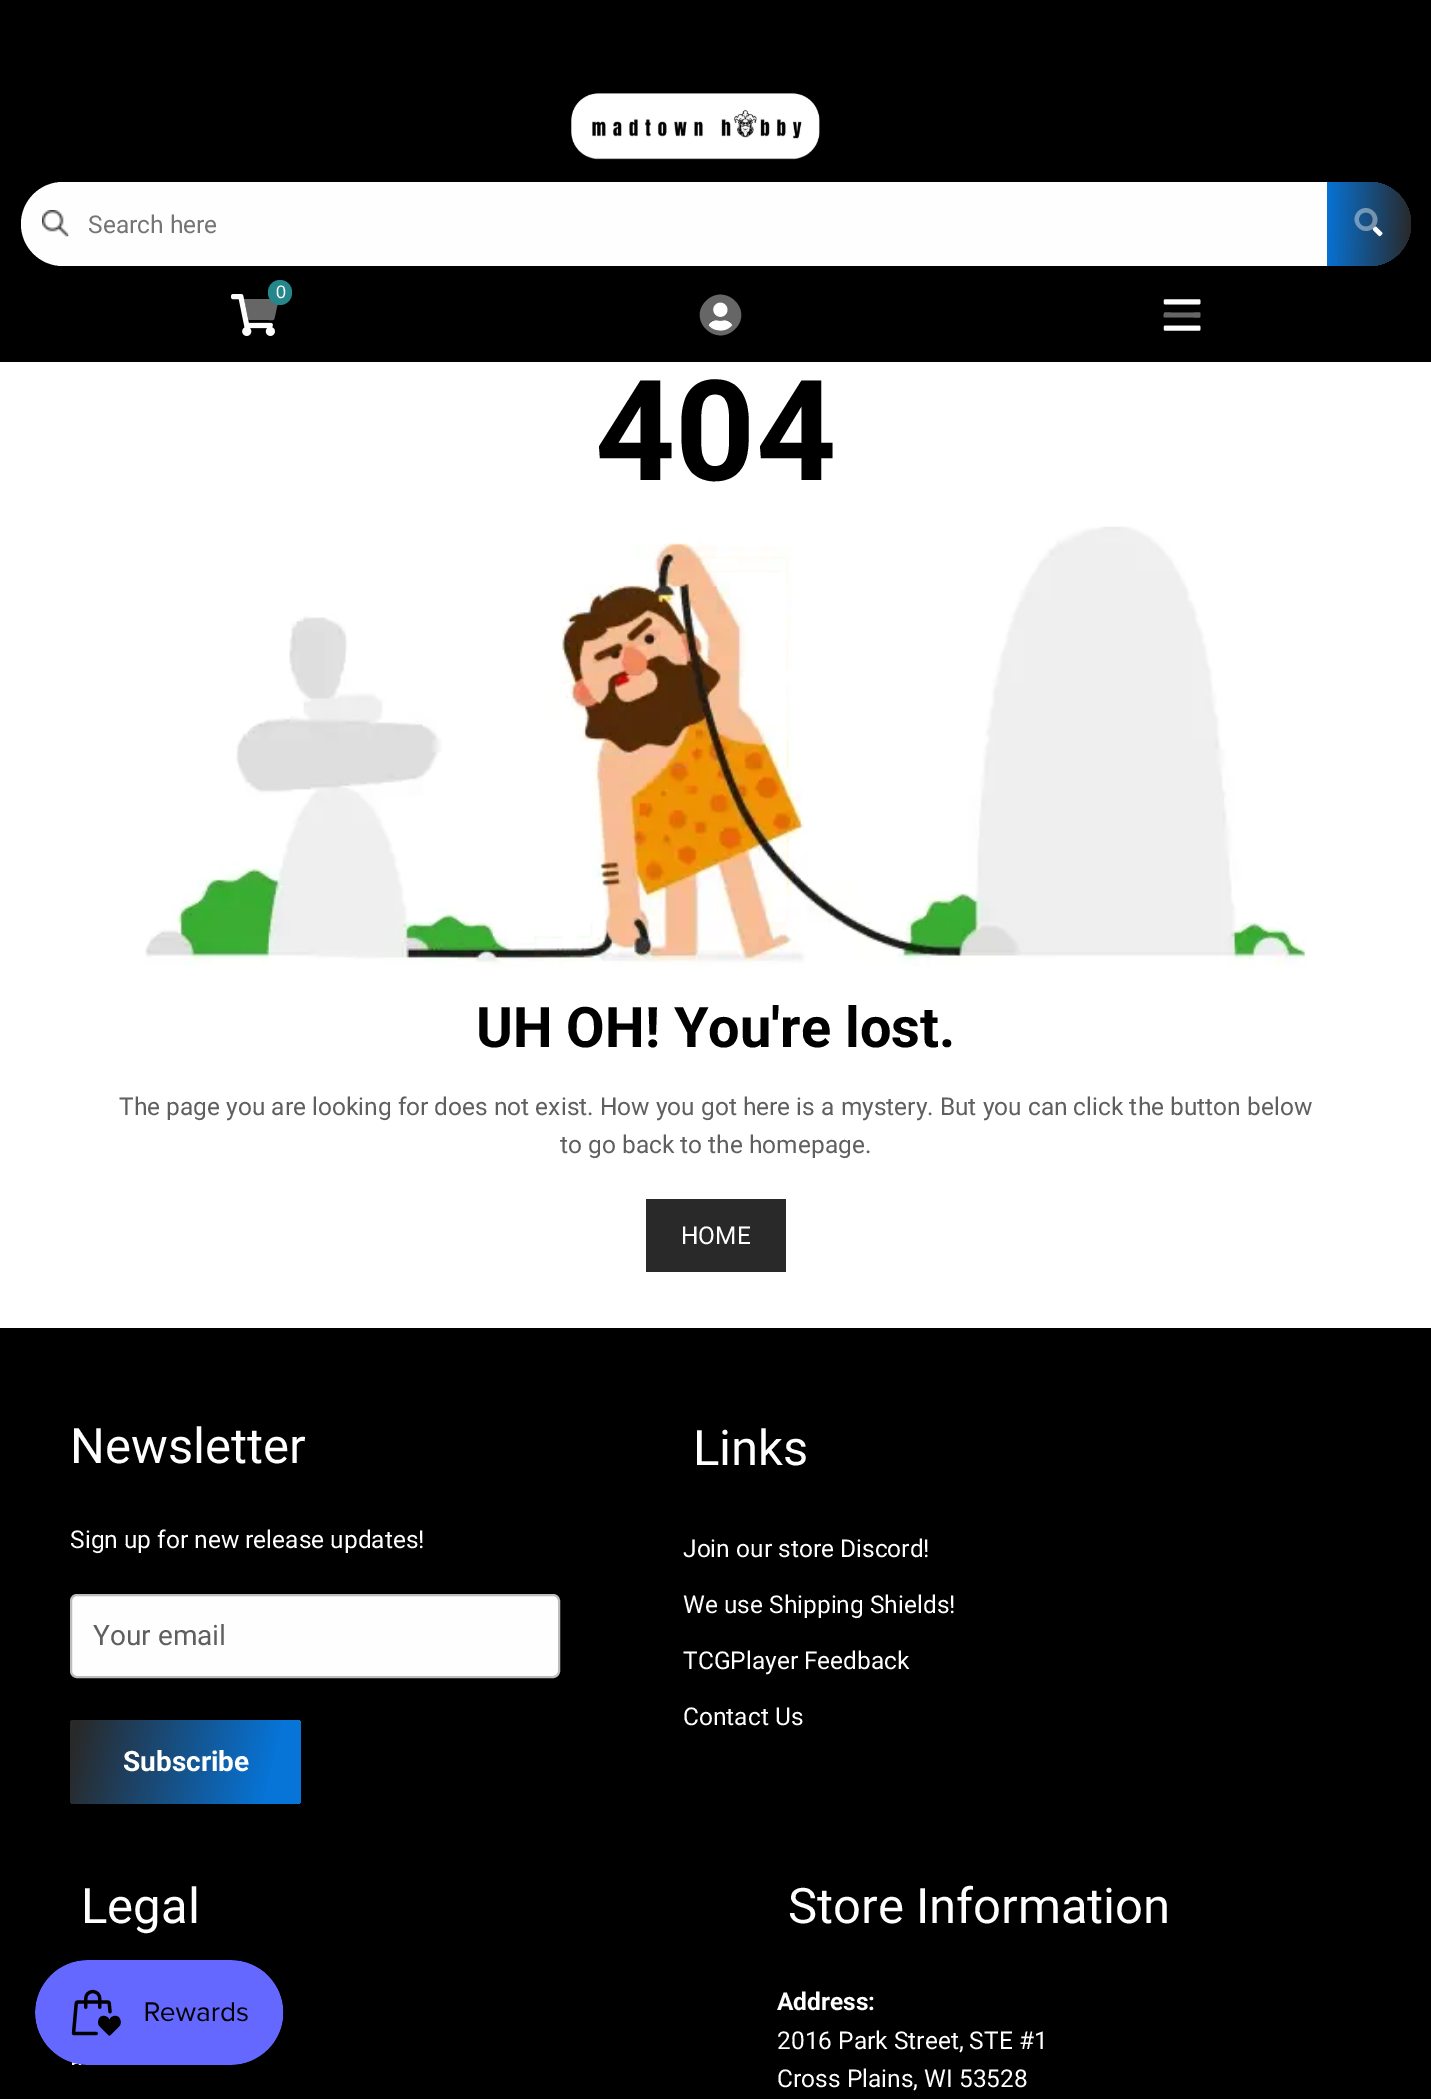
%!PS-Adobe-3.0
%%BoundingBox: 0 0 1431 2099
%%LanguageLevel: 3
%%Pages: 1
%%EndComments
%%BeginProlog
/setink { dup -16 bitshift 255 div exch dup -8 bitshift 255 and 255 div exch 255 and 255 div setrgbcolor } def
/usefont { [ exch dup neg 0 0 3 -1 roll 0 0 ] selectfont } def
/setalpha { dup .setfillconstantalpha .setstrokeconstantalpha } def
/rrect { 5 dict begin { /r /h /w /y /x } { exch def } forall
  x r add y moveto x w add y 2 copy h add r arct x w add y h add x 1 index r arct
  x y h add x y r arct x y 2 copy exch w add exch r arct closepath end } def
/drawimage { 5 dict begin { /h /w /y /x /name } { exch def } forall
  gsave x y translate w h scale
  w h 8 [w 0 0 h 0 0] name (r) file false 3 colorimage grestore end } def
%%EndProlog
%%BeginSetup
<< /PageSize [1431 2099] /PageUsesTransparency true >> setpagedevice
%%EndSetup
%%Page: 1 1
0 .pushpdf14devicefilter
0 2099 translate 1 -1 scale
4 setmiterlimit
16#FFFFFF setink
0 0 1431 2099 rectfill
16#000000 setink
0 0 1431 362 rectfill
(img1.raw) 571 93 249 67 drawimage
16#FEFEFE setink
21 182 1390 84 42 rrect fill
(img2.raw) 42 210 27 27 drawimage
/Roboto-Regular 24.5 usefont
16#757575 setink
88 233 moveto (Search here) show
gsave 1327 182 moveto 1369 182 lineto 1392 182 1411 201 1411 224 curveto 1411 247 1392 266 1369 266 curveto 1327 266 lineto closepath clip newpath
<< /ShadingType 2 /ColorSpace /DeviceRGB /Coords [1412 225 1325 223] /Extend [true true] /Function << /FunctionType 2 /Domain [0 1] /C0 [0.161 0.161 0.161] /C1 [0.027 0.455 0.843] /N 1 >> >> shfill grestore
(img3.raw) 1372 226 11 11 drawimage
0.4 setalpha
16#FFFFFF setink
1366 212.5 moveto 1356.5 212.5 1356.5 226.5 1366 226.5 curveto 1375 226.5 1375 212.5 1366 212.5 curveto closepath 1358 211.5 moveto 1368.5 201 1384.5 217 1374 227.5 curveto 1363.5 238 1347.5 222 1358 211.5 curveto closepath fill
1 setalpha
(img4.raw) 231 294 44 42 drawimage
0.4 setalpha
16#FEFEFE setink
276.5 299 moveto 279.5 299 278 303 277.5 304.5 curveto 275 316 lineto 274 321 274 320 268.5 320 curveto 248.5 320 lineto 244 299 lineto closepath fill
1 setalpha
16#25878C setink
268 280 24 25 12 rrect fill
/LiberationSans-Regular 18 usefont
16#FFFFFF setink
276 298 moveto (0) show
(img5.raw) 708 302 25 29 drawimage
0.4 setalpha
16#FEFEFE setink
706 301 moveto 725 282 754 310 735 329 curveto 716 348 687 320 706 301 curveto closepath 725 305 moveto 719 298 709 308 715 315 curveto 722 321 732 311 725 305 curveto closepath 708 325 moveto 715 333 726 333 732 325 curveto 729 318 725 321 720 321 curveto 715 321 712 318 708 325 curveto closepath fill
1 setalpha
(img6.raw) 1163 299 38 32 drawimage
16#666666 setink
1165 317.5 moveto 1163 317.5 1163.5 315 1164 313.5 curveto 1164 311.5 1168 312.5 1171 312.5 curveto 1193.5 312.5 lineto 1196 312.5 1200.5 311.5 1200.5 313.5 curveto 1200.5 319 1200 317.5 1193.5 317.5 curveto closepath fill
(img7.raw) 145 526 1162 441 drawimage
/Roboto-Bold 140 usefont
16#000000 setink
595 480 moveto (404) show
/Roboto-Bold 56 usefont
476 1047 moveto (UH OH! You're lost.) show
/Roboto-Regular 24.5 usefont
16#5F5F5F setink
119 1115 moveto (The page you are looking for does not exist. How you got here is a mystery. But you can click the button below) show
560 1153 moveto (to go back to the homepage.) show
16#292929 setink
646 1199 140 73 rectfill
16#FFFFFF setink
681 1244 moveto (HOME) show
16#000000 setink
0 1328 1431 771 rectfill
/Roboto-Regular 49 usefont
16#FFFFFF setink
70 1463 moveto (Newsletter) show
/Roboto-Regular 24.5 usefont
70 1548 moveto (Sign up for new release updates!) show
16#FEFEFE setink
71 1595 488 82 6 rrect gsave fill grestore
16#BDBDBD setink
2 setlinewidth
stroke
/Roboto-Regular 28 usefont
16#5F5F5F setink
93 1645 moveto (Your email) show
gsave 70 1720 231 84 4 rrect clip newpath
<< /ShadingType 2 /ColorSpace /DeviceRGB /Coords [67 1734 304 1791] /Extend [true true] /Function << /FunctionType 3 /Domain [0 1] /Functions [<< /FunctionType 2 /Domain [0 1] /C0 [0.161 0.161 0.161] /C1 [0.161 0.161 0.161] /N 1 >> << /FunctionType 2 /Domain [0 1] /C0 [0.161 0.161 0.161] /C1 [0.027 0.455 0.843] /N 1 >> << /FunctionType 2 /Domain [0 1] /C0 [0.027 0.455 0.843] /C1 [0.027 0.455 0.843] /N 1 >>] /Bounds [0.03 0.85] /Encode [0 1 0 1 0 1] >> >> shfill grestore
/Roboto-Bold 28 usefont
16#FFFFFF setink
123 1771 moveto (Subscribe) show
/Roboto-Regular 49 usefont
693 1465 moveto (Links) show
/Roboto-Regular 24.5 usefont
[
    [(Join our store Discord!) 683 1557]
    [(We use Shipping Shields!) 683 1613]
    [(TCGPlayer Feedback) 683 1669]
    [(Contact Us) 683 1725]
] { aload pop moveto show } forall
/Roboto-Regular 49 usefont
81 1923 moveto (Legal) show
788 1923 moveto (Store Information) show
/Roboto-Bold 24.5 usefont
777 2010 moveto (Address:) show
/Roboto-Regular 24.5 usefont
777 2049 moveto (2016 Park Street, STE #1) show
777 2087 moveto (Cross Plains, WI 53528) show
(img8.raw) 35 1960 249 105 drawimage
.poppdf14devicefilter showpage
%%EOF
